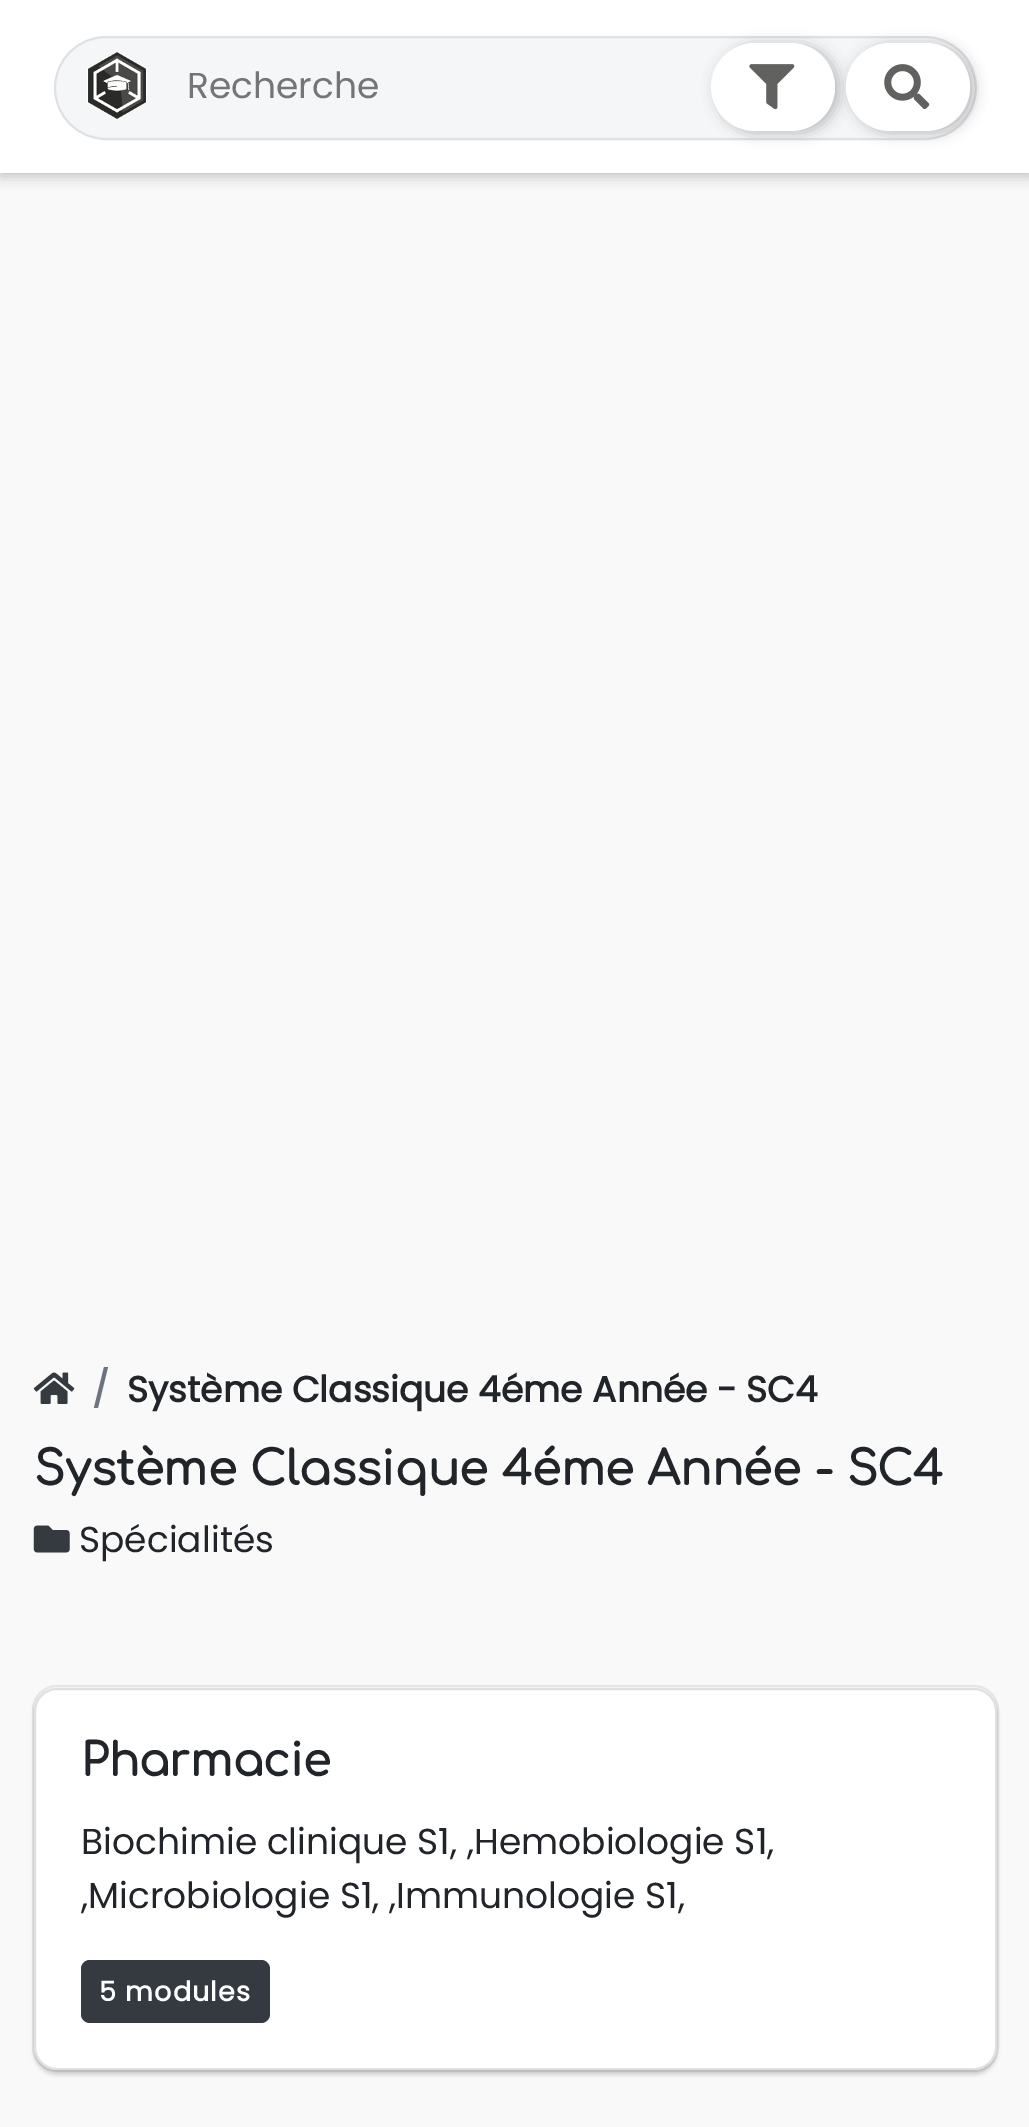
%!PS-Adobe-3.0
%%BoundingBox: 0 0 1029 2127
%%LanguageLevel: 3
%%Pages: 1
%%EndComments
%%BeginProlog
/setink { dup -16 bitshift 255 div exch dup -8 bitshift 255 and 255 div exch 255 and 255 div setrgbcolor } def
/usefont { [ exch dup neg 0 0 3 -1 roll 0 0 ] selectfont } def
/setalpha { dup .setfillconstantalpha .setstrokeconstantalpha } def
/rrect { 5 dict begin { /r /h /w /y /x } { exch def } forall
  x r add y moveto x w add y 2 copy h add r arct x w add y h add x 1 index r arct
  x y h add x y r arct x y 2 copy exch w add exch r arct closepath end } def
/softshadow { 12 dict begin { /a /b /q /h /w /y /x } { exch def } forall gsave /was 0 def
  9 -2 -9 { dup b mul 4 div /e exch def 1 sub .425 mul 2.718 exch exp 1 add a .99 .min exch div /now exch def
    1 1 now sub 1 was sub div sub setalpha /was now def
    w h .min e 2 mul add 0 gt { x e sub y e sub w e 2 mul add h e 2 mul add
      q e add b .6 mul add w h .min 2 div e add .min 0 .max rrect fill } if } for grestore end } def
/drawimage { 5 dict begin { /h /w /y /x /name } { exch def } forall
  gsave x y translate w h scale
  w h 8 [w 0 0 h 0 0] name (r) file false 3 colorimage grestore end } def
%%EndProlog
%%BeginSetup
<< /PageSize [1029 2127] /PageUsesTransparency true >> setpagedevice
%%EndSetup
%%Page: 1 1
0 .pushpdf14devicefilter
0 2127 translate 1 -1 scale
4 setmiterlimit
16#F9F9F9 setink
0 0 1029 2127 rectfill
16#202124 setink
0 2 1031 174 0 7 0.28 softshadow
16#FFFFFF setink
0 0 1029 173 rectfill
16#F5F6F8 setink
55 37 921 102 51 rrect gsave fill grestore
16#DFE1E5 setink
2 setlinewidth
stroke
(img1.raw) 87 51 60 69 drawimage
/Poppins-Regular 36 usefont
16#757575 setink
187 98 moveto (Recherche) show
16#202124 setink
716 45 123 88 44 7 0.28 softshadow
16#FFFFFF setink
711 43 124 88 44 rrect fill
(img2.raw) 749 64 46 46 drawimage
16#202124 setink
851 45 123 88 44 7 0.28 softshadow
16#FFFFFF setink
846 43 124 88 44 rrect fill
(img3.raw) 884 64 46 46 drawimage
(img4.raw) 33 1372 42 32 drawimage
/Poppins-Bold 36 usefont
16#6C757D setink
92 1402 moveto (/) show
16#212529 setink
127 1402 moveto (Système Classique 4éme Année - SC4) show
/Comfortaa-Bold 46.75 usefont
34 1485 moveto (Système Classique 4éme Année - SC4) show
(img5.raw) 33 1525 37 28 drawimage
/Poppins-Regular 36 usefont
79 1552 moveto (Spécialités) show
16#E5E5E5 setink
33 1686 965 385 24 rrect stroke
16#000000 setink
34 1692 963 383 23 2 0.16 softshadow
16#FFFFFF setink
34 1688 963 382 23 rrect fill
0.12 setalpha
16#000000 setink
35 1689 961 380 22 rrect stroke
/Comfortaa-Bold 45 usefont
1 setalpha
16#212529 setink
81 1776 moveto (Pharmacie) show
/Poppins-Regular 36 usefont
81 1854 moveto (Biochimie clinique S1, ,Hemobiologie S1,) show
81 1908 moveto (,Microbiologie S1, ,Immunologie S1,) show
16#343A40 setink
81 1960 189 63 9 rrect fill
/Poppins-Bold 27 usefont
16#FFFFFF setink
99 2001 moveto 1.1 0 (5 modules) ashow
.poppdf14devicefilter showpage
%%EOF
